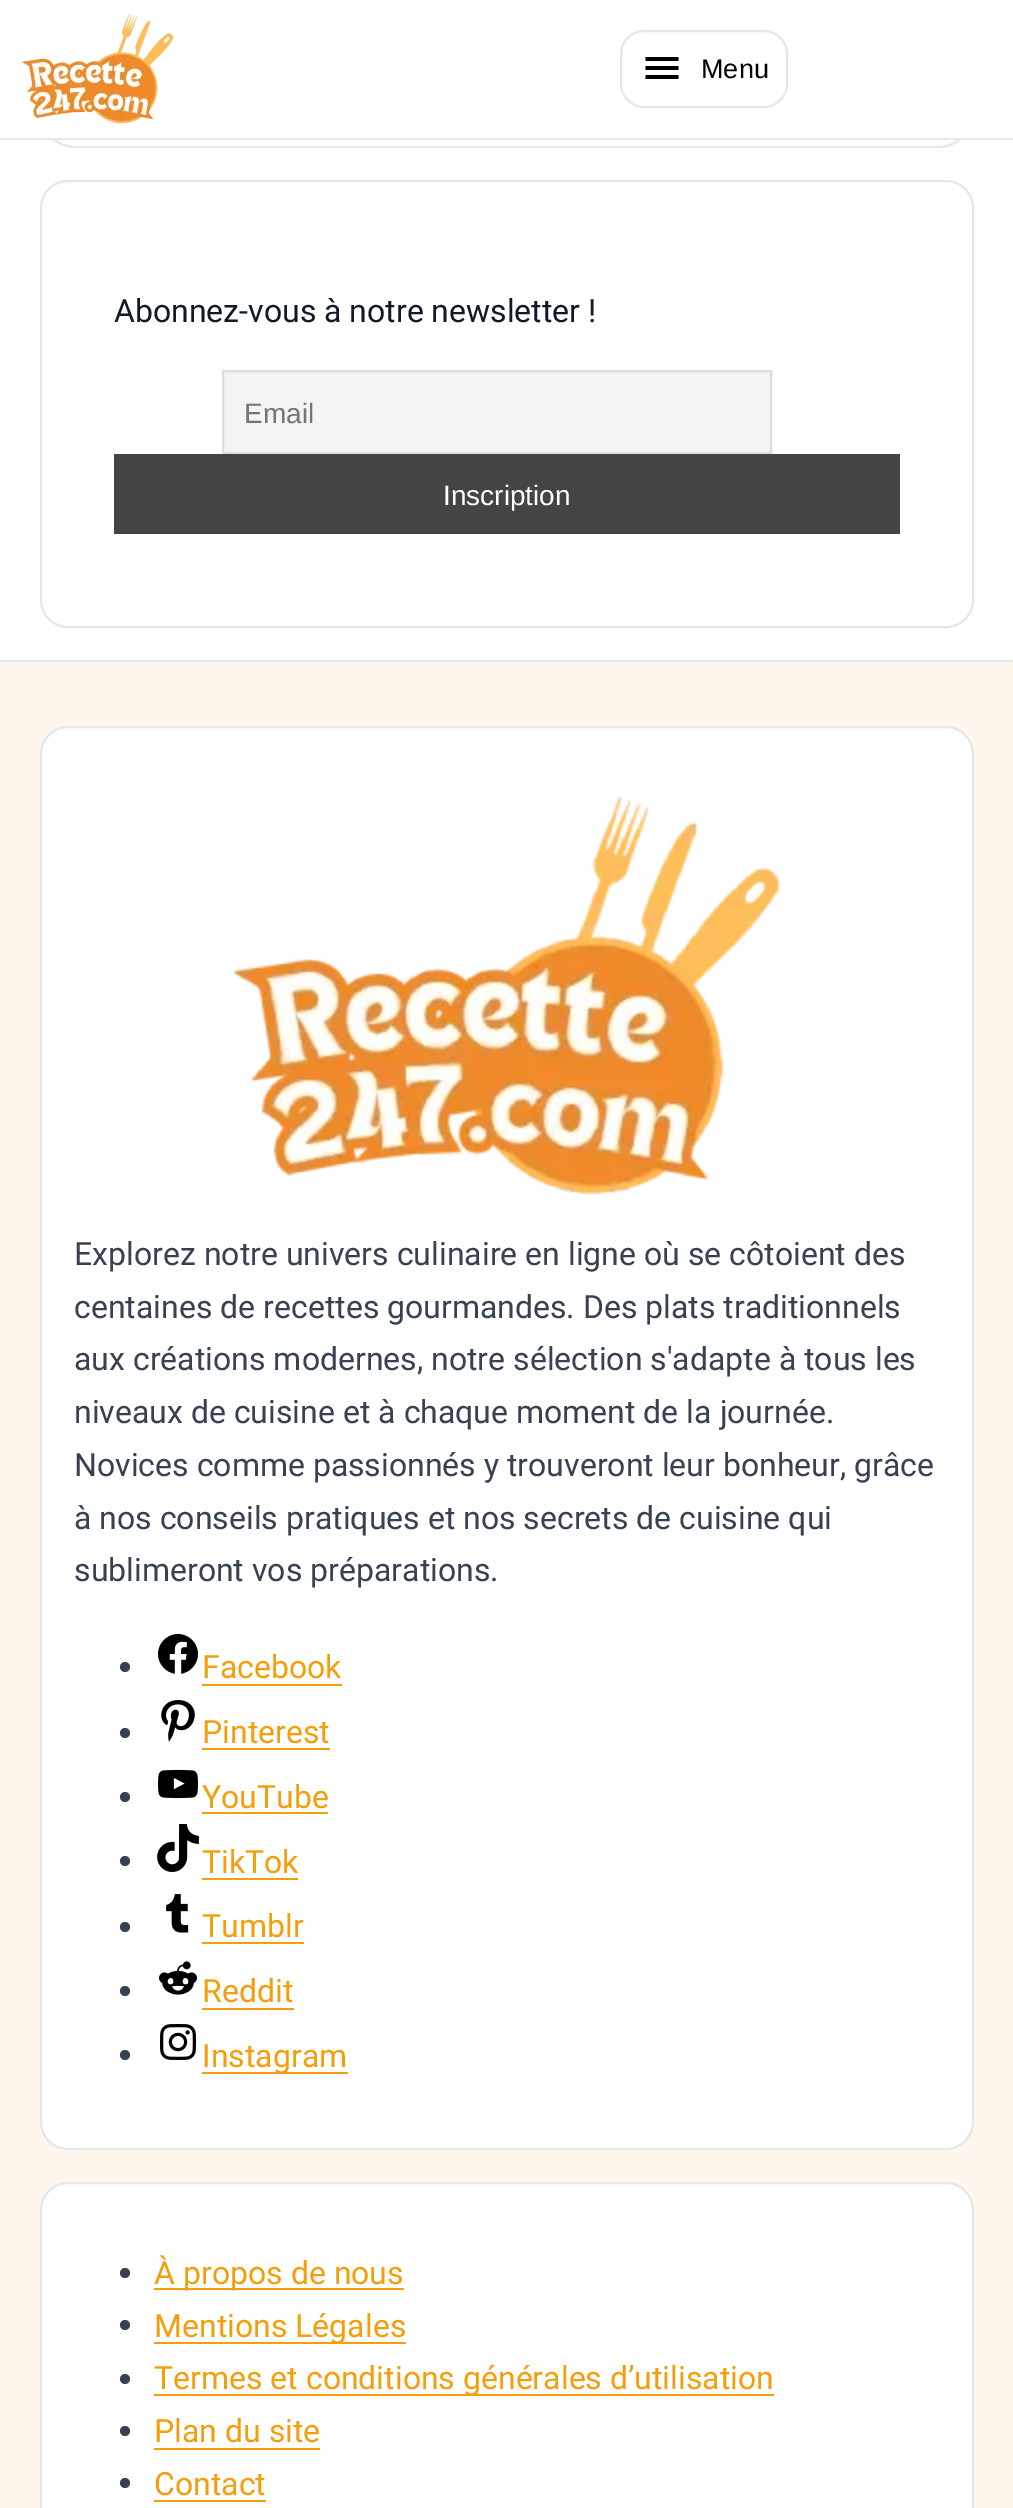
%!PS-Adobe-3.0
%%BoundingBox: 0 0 1013 2508
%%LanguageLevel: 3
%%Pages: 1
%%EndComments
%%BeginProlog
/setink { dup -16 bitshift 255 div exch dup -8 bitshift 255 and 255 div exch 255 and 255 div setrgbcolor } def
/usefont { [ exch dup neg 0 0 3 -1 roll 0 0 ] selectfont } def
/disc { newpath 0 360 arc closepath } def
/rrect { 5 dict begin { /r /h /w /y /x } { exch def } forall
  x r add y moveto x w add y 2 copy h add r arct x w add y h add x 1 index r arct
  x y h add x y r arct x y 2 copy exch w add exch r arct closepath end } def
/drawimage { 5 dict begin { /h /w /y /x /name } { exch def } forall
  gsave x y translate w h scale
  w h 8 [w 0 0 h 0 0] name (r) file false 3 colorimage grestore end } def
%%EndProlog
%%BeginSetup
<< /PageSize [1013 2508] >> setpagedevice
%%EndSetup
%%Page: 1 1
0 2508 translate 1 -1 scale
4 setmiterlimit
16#FFFFFF setink
0 0 1013 2508 rectfill
16#E5E7EB setink
76 148 moveto 938 148 lineto 948 148 957 144 964 138 curveto 962 136 lineto 956 142 948 146 938 146 curveto 76 146 lineto 66 146 58 142 52 136 curveto 50 138 lineto 57 144 66 148 76 148 curveto closepath fill
16#FFFFFF setink
50 136 914 2 rectfill
16#E5E7EB setink
0 138 1013 2 rectfill
(img1.raw) 22 13 152 111 drawimage
2 setlinewidth
621 31 166 76 23 rrect stroke
16#000000 setink
3.7 setlinewidth
645.5 59 moveto 678.5 59 lineto 645.5 68 moveto 678.5 68 lineto 645.5 77 moveto 678.5 77 lineto stroke
/LiberationSans-Regular 27 usefont
701 78 moveto (Menu) show
16#E5E7EB setink
2 setlinewidth
41 181 932 446 27 rrect stroke
/Roboto-Regular 32 usefont
16#111827 setink
114 322 moveto (Abonnez-vous à notre newsletter !) show
16#F4F4F4 setink
223 371 moveto 771 371 lineto 771 453 lineto 223 453 lineto closepath gsave fill grestore
16#DDDDDD setink
stroke
/LiberationSans-Regular 28 usefont
16#757575 setink
244 423 moveto (Email) show
16#444444 setink
114 454 786 80 rectfill
16#FFFFFF setink
443 505 moveto (Inscription) show
16#E5E7EB setink
0 660 1013 2 rectfill
16#FFF7ED setink
0 662 1013 1846 rectfill
16#FFFFFF setink
41 727 932 1422 27 rrect gsave fill grestore
16#E5E7EB setink
stroke
(img2.raw) 233 795 548 400 drawimage
/Roboto-Regular 32 usefont
16#374151 setink
[
    [(Explorez notre univers culinaire en ligne où se côtoient des) 74 1265]
    [(centaines de recettes gourmandes. Des plats traditionnels) 74 1318]
    [(aux créations modernes, notre sélection s'adapte à tous les) 74 1370]
    [(niveaux de cuisine et à chaque moment de la journée.) 74 1423]
    [(Novices comme passionnés y trouveront leur bonheur, grâce) 74 1476]
    [(à nos conseils pratiques et nos secrets de cuisine qui) 74 1529]
    [(sublimeront vos préparations.) 74 1581]
] { aload pop moveto show } forall
125 1667 5 disc fill
(img3.raw) 158 1634 40 40 drawimage
16#F59E0B setink
202 1678 moveto (Facebook) show
202 1684 140 2 rectfill
16#374151 setink
125 1733 5 disc fill
(img4.raw) 161 1700 34 42 drawimage
16#F59E0B setink
202 1743 moveto (Pinterest) show
202 1748 128 2 rectfill
16#374151 setink
125 1797 5 disc fill
(img5.raw) 158 1769 40 30 drawimage
16#F59E0B setink
202 1808 moveto (YouTube) show
202 1812 126 2 rectfill
16#374151 setink
125 1861 5 disc fill
(img6.raw) 157 1824 42 48 drawimage
16#F59E0B setink
202 1873 moveto (TikTok) show
202 1878 96 2 rectfill
16#374151 setink
125 1927 5 disc fill
(img7.raw) 166 1894 23 39 drawimage
16#F59E0B setink
202 1937 moveto (Tumblr) show
202 1942 102 2 rectfill
16#374151 setink
125 1991 5 disc fill
(img8.raw) 159 1961 38 34 drawimage
16#F59E0B setink
202 2002 moveto (Reddit) show
202 2008 92 2 rectfill
16#374151 setink
125 2055 5 disc fill
(img9.raw) 160 2024 36 36 drawimage
16#F59E0B setink
202 2072 146 2 rectfill
202 2067 moveto (Instagram) show
16#FFFFFF setink
41 2183 932 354 27 rrect gsave fill grestore
16#E5E7EB setink
stroke
16#374151 setink
125 2273 5 disc fill
16#F59E0B setink
154 2288 250 2 rectfill
154 2284 moveto (À propos de nous) show
16#374151 setink
125 2325 5 disc fill
16#F59E0B setink
154 2342 252 2 rectfill
154 2337 moveto (Mentions Légales) show
16#374151 setink
125 2379 5 disc fill
16#F59E0B setink
154 2394 620 2 rectfill
154 2389 moveto (Termes et conditions générales d’utilisation) show
16#374151 setink
125 2431 5 disc fill
16#F59E0B setink
154 2442 moveto (Plan du site) show
154 2448 166 2 rectfill
16#374151 setink
125 2483 5 disc fill
16#F59E0B setink
154 2495 moveto (Contact) show
154 2500 112 2 rectfill
showpage
%%EOF
